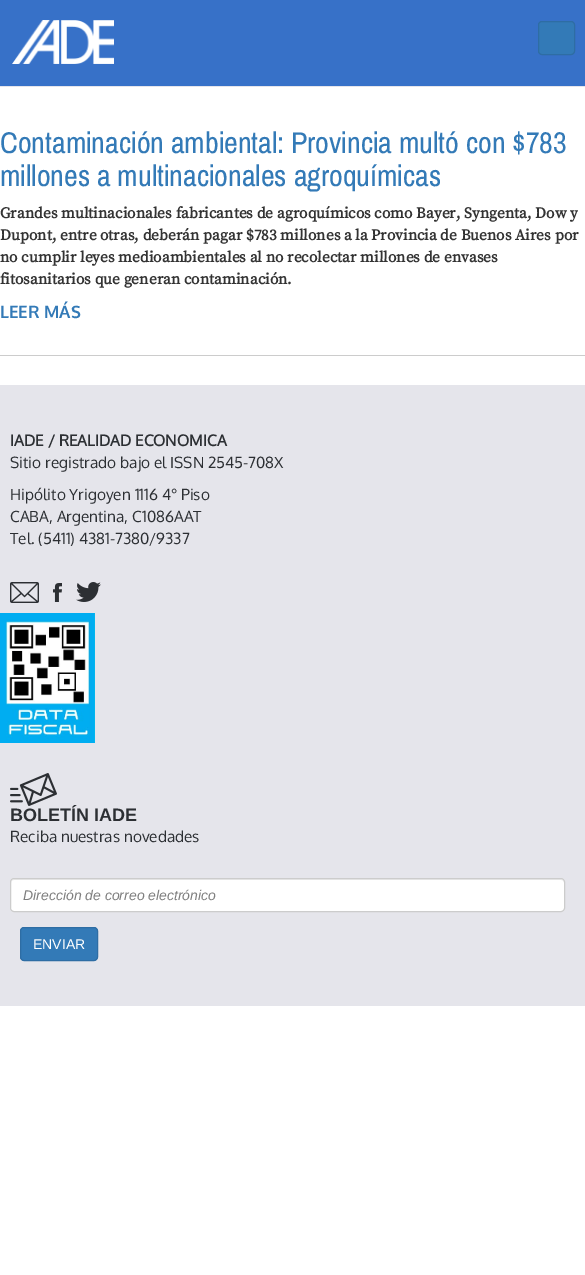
%!PS-Adobe-3.0
%%BoundingBox: 0 0 585 1275
%%LanguageLevel: 3
%%Pages: 1
%%EndComments
%%BeginProlog
/setink { dup -16 bitshift 255 div exch dup -8 bitshift 255 and 255 div exch 255 and 255 div setrgbcolor } def
/usefont { [ exch dup neg 0 0 3 -1 roll 0 0 ] selectfont } def
/rrect { 5 dict begin { /r /h /w /y /x } { exch def } forall
  x r add y moveto x w add y 2 copy h add r arct x w add y h add x 1 index r arct
  x y h add x y r arct x y 2 copy exch w add exch r arct closepath end } def
/drawimage { 5 dict begin { /h /w /y /x /name } { exch def } forall
  gsave x y translate w h scale
  w h 8 [w 0 0 h 0 0] name (r) file false 3 colorimage grestore end } def
%%EndProlog
%%BeginSetup
<< /PageSize [585 1275] >> setpagedevice
%%EndSetup
%%Page: 1 1
0 1275 translate 1 -1 scale
4 setmiterlimit
16#FFFFFF setink
0 0 585 1275 rectfill
16#3771C8 setink
0 0 585 86 rectfill
(img1.raw) 12 20 102 44 drawimage
16#337AB7 setink
538.5 21.5 36 33 3.5 rrect gsave fill grestore
16#2E6DA4 setink
stroke
16#E5E5EB setink
0 86 585 1 rectfill
16#CCCCCC setink
0 355 585 1 rectfill
/ArchivoNarrow-Regular 30 usefont
16#337AB7 setink
0 153 moveto (Contaminación ambiental: Provincia multó con $783) show
0 186 moveto (millones a multinacionales agroquímicas) show
/SourceSerifPro-Bold 15.4 usefont
16#333333 setink
[
    [(Grandes multinacionales fabricantes de agroquímicos como Bayer, Syngenta, Dow y) 0 218]
    [(Dupont, entre otras, deberán pagar $783 millones a la Provincia de Buenos Aires por) 0 240]
    [(no cumplir leyes medioambientales al no recolectar millones de envases) 0 262]
    [(fitosanitarios que generan contaminación.) 0 284]
] { aload pop moveto show } forall
/Oxygen-Bold 17 usefont
16#337AB7 setink
0 318 moveto (LEER MÁS) show
16#E5E5EB setink
0 385 585 621 rectfill
/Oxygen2-Bold 15.4 usefont
16#2C2F33 setink
10 446 moveto (IADE / REALIDAD ECONOMICA) show
/Oxygen-Regular 15.4 usefont
[
    [(Sitio registrado bajo el ISSN 2545-708X) 10 468]
    [(Hipólito Yrigoyen 1116 4° Piso) 10 500]
    [(CABA, Argentina, C1086AAT) 10 522]
    [(Tel. \(5411\) 4381-7380/9337) 10 544]
] { aload pop moveto show } forall
(img2.raw) 10 582 29 21 drawimage
(img3.raw) 53 583 9 19 drawimage
(img4.raw) 76 582 25 20 drawimage
(img5.raw) 0 613 95 130 drawimage
(img6.raw) 10 773 47 33 drawimage
/LiberationSans-Bold 18 usefont
10 821 moveto (BOLETÍN IADE) show
/Oxygen-Regular 15.4 usefont
10 842 moveto (Reciba nuestras novedades) show
16#FFFFFF setink
10 878 555 34 4 rrect fill
16#ECECEC setink
14 880 moveto 561 880 lineto 563 880 564 881 564 883 curveto 564 881 563 879 561 879 curveto 14 879 lineto 12 880 lineto 11 881 lineto 11 883 lineto 11 881 12 880 14 880 curveto closepath fill
16#CCCCCC setink
10.5 878.5 554 33 3.5 rrect stroke
/LiberationSans-Italic 14 usefont
16#7F7F7F setink
23 900 moveto (Dirección de correo electrónico) show
16#337AB7 setink
20.5 927.5 77 33 3.5 rrect gsave fill grestore
16#2E6DA4 setink
stroke
/LiberationSans-Regular 14 usefont
16#FFFFFF setink
33 949 moveto (ENVIAR) show
showpage
%%EOF
